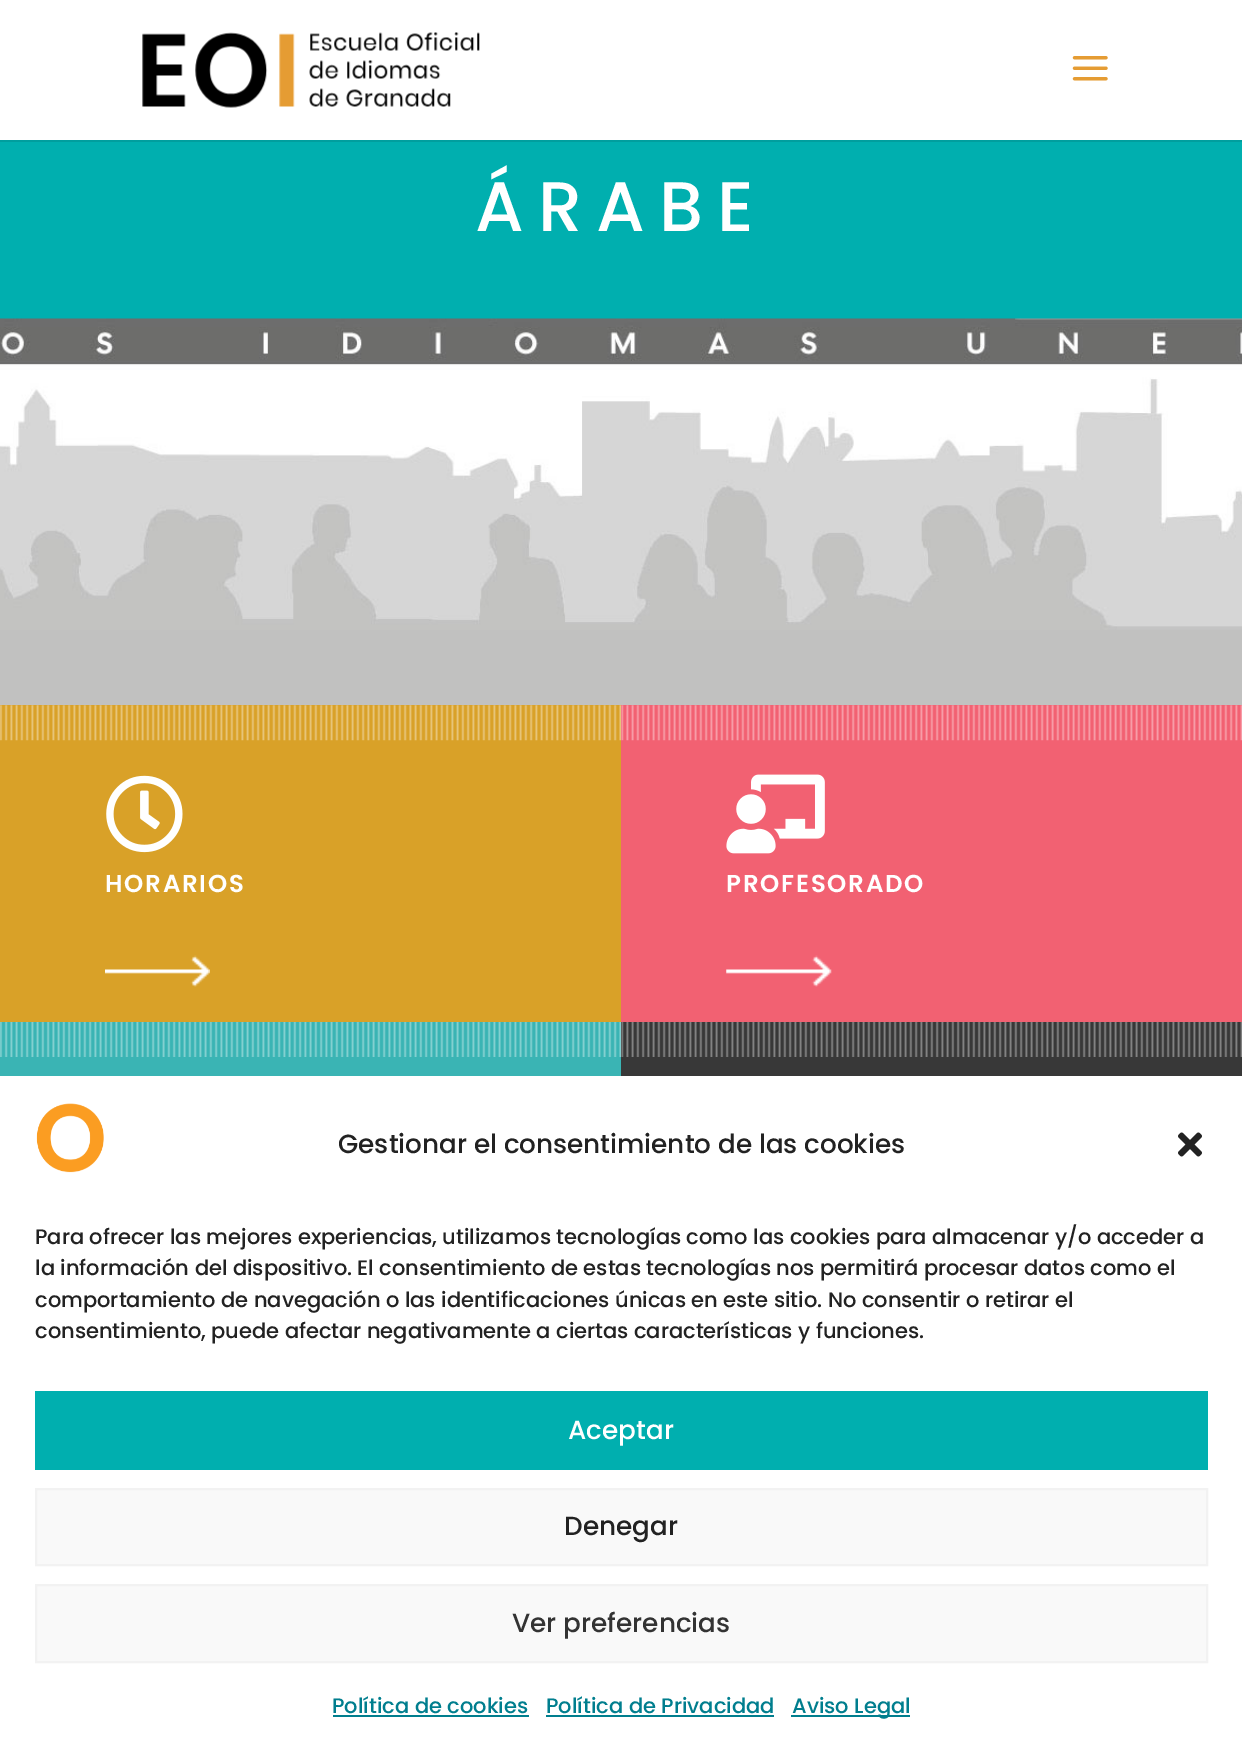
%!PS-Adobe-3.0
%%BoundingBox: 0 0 1242 1755
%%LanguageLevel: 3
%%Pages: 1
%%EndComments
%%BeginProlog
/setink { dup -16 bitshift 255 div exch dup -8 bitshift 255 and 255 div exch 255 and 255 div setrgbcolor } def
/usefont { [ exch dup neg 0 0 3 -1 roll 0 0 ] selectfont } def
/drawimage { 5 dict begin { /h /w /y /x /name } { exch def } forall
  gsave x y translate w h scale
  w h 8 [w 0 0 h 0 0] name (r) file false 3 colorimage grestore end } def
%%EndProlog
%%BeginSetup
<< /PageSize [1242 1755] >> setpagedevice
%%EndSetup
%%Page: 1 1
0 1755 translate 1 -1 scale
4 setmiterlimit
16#00AFAF setink
0 0 1242 1755 rectfill
16#009E9E setink
0 140 moveto 0 142 lineto 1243 142 lineto 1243 2 lineto 1242 2 lineto 1242 140 lineto closepath fill
16#FFFFFF setink
0 0 1242 140 rectfill
(img1.raw) 142 32 338 76 drawimage
(img2.raw) 1072 56 36 25 drawimage
/Poppins-Medium 70 usefont
475 231 moveto 14 0 (ÁRABE) ashow
(img3.raw) 0 318 1242 312 drawimage
16#C1C1C0 setink
0 630 1242 75 rectfill
16#D9A128 setink
0 705 621 317 rectfill
(img4.raw) 0 705 621 36 drawimage
(img5.raw) 106 775 77 78 drawimage
/Poppins-SemiBold 24.5 usefont
16#FFFFFF setink
105 892 moveto 1.75 0 (HORARIOS) ashow
(img6.raw) 105 955 105 32 drawimage
16#F26172 setink
621 705 621 317 rectfill
(img7.raw) 621 705 621 36 drawimage
(img8.raw) 726 774 99 80 drawimage
16#FFFFFF setink
726 892 moveto 1.75 0 (PROFESORADO) ashow
(img9.raw) 726 955 106 32 drawimage
16#3AB4B4 setink
0 1022 621 54 rectfill
(img10.raw) 0 1022 621 35 drawimage
16#383838 setink
621 1022 621 54 rectfill
(img11.raw) 621 1022 621 35 drawimage
16#FFFFFF setink
0 1076 1242 679 rectfill
(img12.raw) 36 1103 68 70 drawimage
/Poppins-Medium 26.25 usefont
16#222222 setink
338 1153 moveto (Gestionar el consentimiento de las cookies) show
(img13.raw) 1178 1132 24 25 drawimage
/Poppins-Medium 21 usefont
[
    [(Para ofrecer las mejores experiencias, utilizamos tecnologías como las cookies para almacenar y/o acceder a) 35 1244]
    [(la información del dispositivo. El consentimiento de estas tecnologías nos permitirá procesar datos como el) 35 1275]
    [(comportamiento de navegación o las identificaciones únicas en este sitio. No consentir o retirar el) 35 1307]
    [(consentimiento, puede afectar negativamente a ciertas características y funciones.) 35 1338]
] { aload pop moveto show } forall
16#00AFAF setink
35 1391 1173 79 rectfill
/Poppins-Medium 26.25 usefont
16#FFFFFF setink
568 1439 moveto (Aceptar) show
16#F9F9F9 setink
36 1489 moveto 1207 1489 lineto 1207 1565 lineto 36 1565 lineto closepath gsave fill grestore
16#F2F2F2 setink
2 setlinewidth
stroke
16#222222 setink
564 1535 moveto (Denegar) show
16#F9F9F9 setink
36 1585 moveto 1207 1585 lineto 1207 1662 lineto 36 1662 lineto closepath gsave fill grestore
16#F2F2F2 setink
stroke
16#333333 setink
512 1632 moveto (Ver preferencias) show
/Poppins-Medium 21 usefont
16#007E8E setink
332 1713 moveto (Política de cookies) show
333 1715 196 2 rectfill
546 1713 moveto (Política de Privacidad) show
546 1715 228 2 rectfill
791 1715 119 2 rectfill
792 1713 moveto (Aviso Legal) show
showpage
%%EOF
